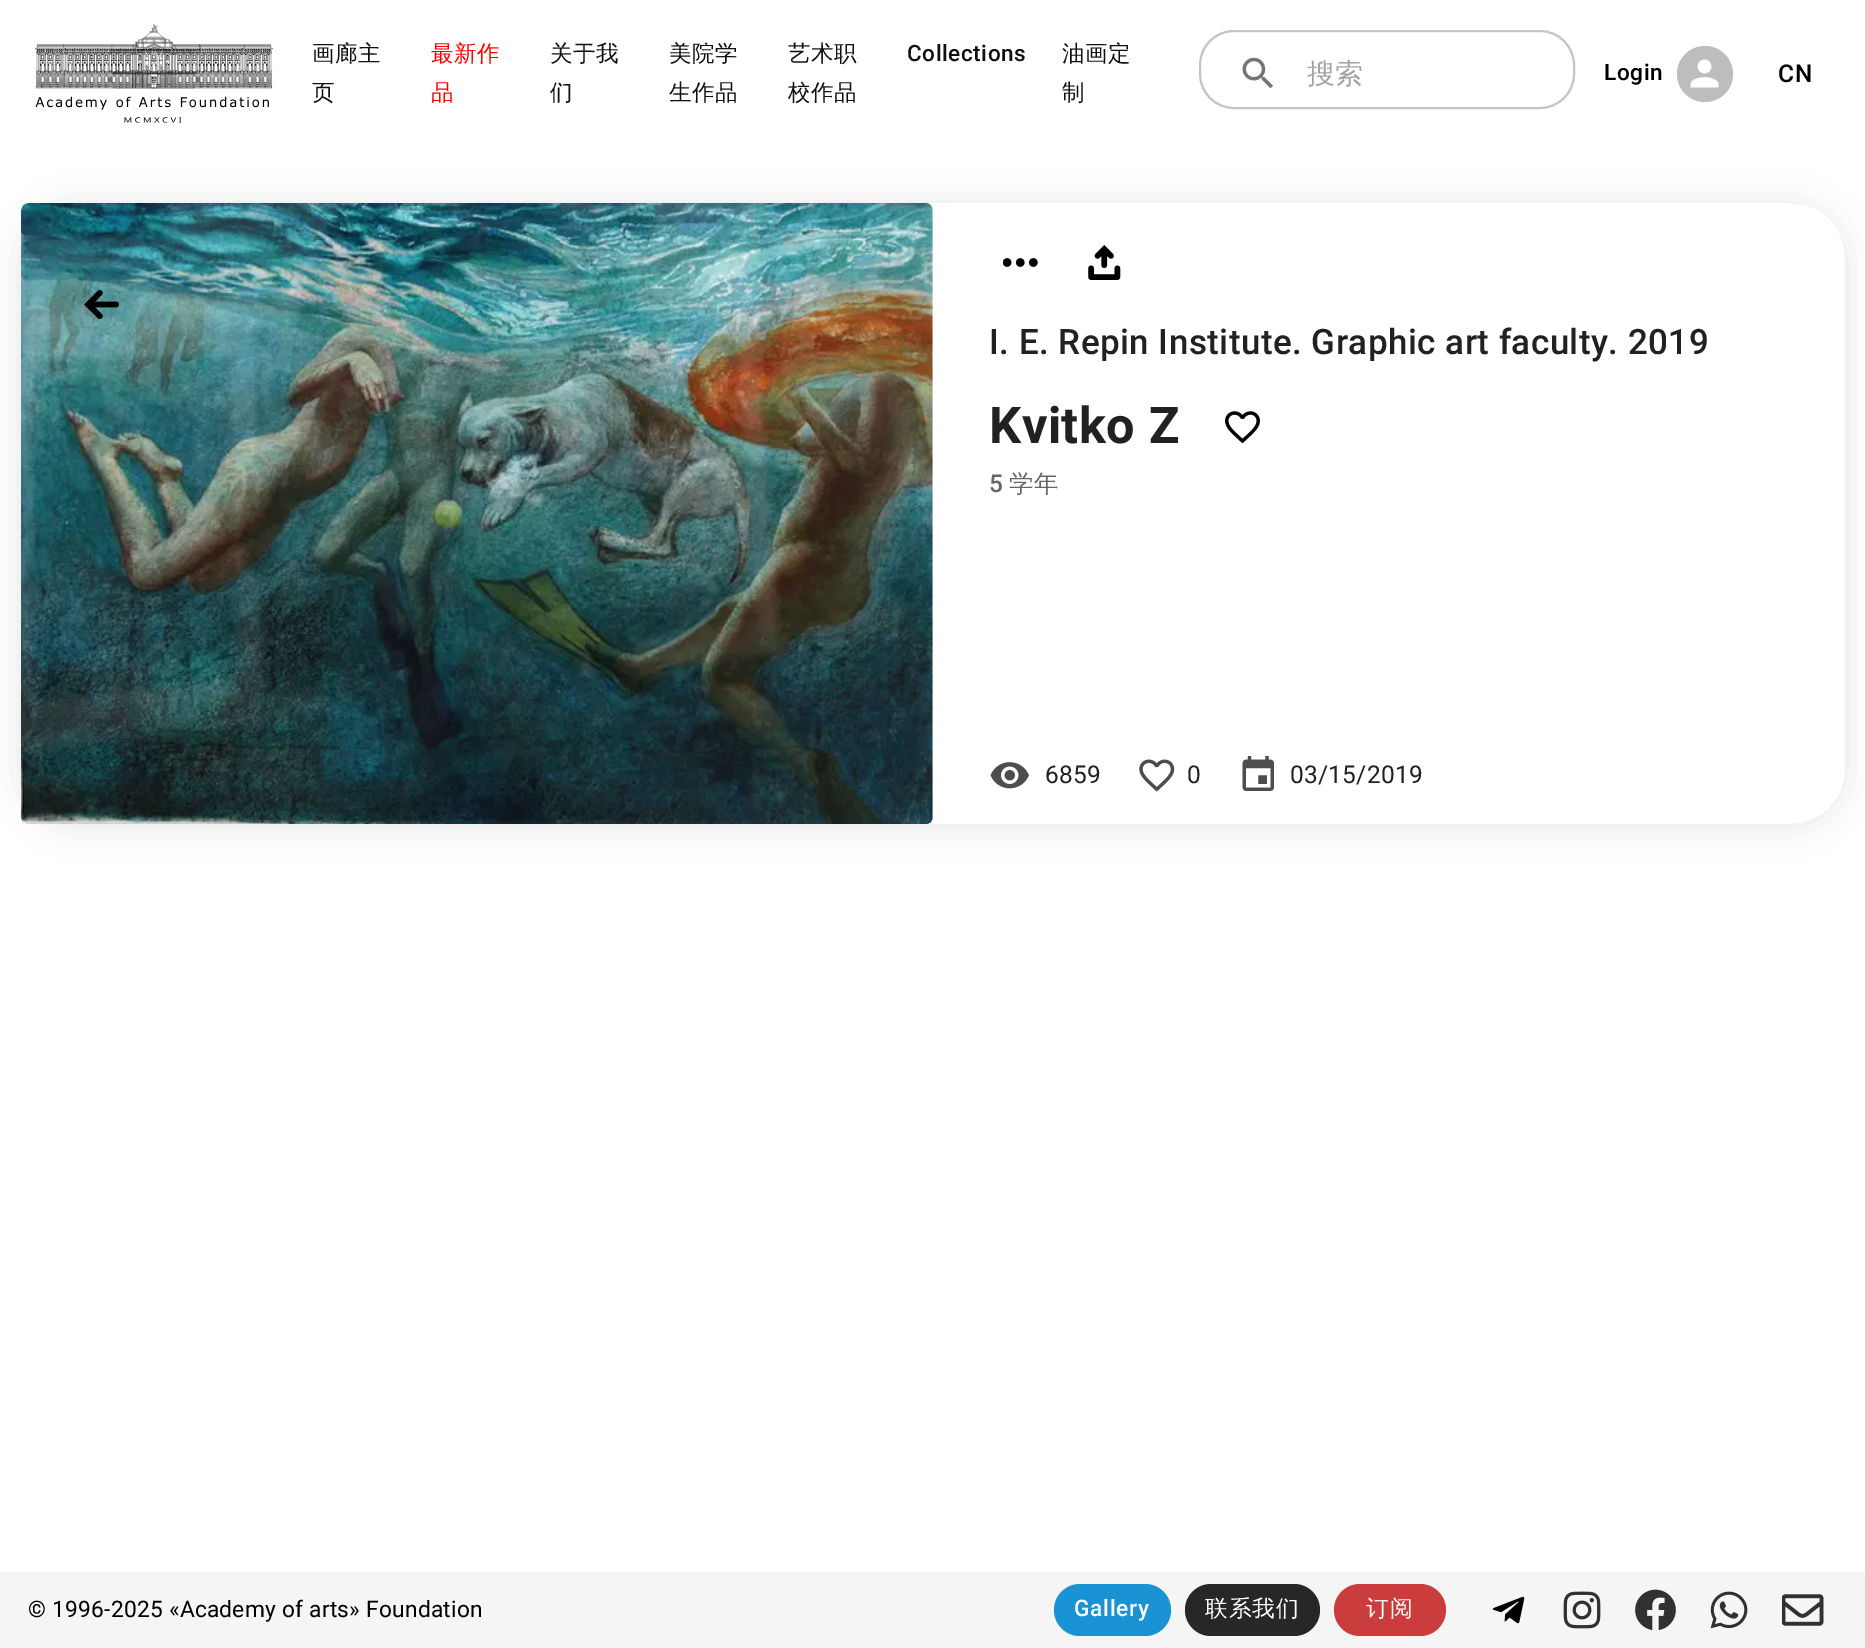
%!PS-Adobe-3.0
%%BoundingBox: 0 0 1865 1648
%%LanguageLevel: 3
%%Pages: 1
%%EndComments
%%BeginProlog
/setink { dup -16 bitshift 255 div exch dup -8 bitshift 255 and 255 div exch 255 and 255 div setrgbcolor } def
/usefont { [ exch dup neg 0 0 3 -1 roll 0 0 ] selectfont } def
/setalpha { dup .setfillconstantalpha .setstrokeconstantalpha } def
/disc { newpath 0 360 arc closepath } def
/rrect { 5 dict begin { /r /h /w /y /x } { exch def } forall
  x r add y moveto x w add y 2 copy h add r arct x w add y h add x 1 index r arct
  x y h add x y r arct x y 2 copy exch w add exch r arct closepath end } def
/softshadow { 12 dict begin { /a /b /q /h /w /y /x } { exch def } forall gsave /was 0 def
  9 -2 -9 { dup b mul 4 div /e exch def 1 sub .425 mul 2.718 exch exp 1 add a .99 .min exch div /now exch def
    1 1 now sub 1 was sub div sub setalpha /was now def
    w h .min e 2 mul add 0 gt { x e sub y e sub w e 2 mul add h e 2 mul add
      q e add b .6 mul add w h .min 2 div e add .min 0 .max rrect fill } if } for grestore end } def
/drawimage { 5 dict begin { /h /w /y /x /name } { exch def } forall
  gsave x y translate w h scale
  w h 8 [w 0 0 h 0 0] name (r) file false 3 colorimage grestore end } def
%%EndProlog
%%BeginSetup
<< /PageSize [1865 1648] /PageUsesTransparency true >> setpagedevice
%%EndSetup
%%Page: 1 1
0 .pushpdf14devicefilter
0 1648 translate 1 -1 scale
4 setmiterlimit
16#FFFFFF setink
0 0 1865 1648 rectfill
(img1.raw) 35 24 238 99 drawimage
/WenQuanYiZenHei-Medium 22.5 usefont
16#101010 setink
312 61 moveto 0.6 0 (画廊主) ashow
312 100 moveto 0.6 0 (页) ashow
16#FF0000 setink
431 61 moveto 0.6 0 (最新作) ashow
431 100 moveto 0.6 0 (品) ashow
16#101010 setink
550 61 moveto 0.6 0 (关于我) ashow
550 100 moveto 0.6 0 (们) ashow
669 61 moveto 0.6 0 (美院学) ashow
669 100 moveto 0.6 0 (生作品) ashow
788 61 moveto 0.6 0 (艺术职) ashow
788 100 moveto 0.6 0 (校作品) ashow
/Roboto-Medium 22.5 usefont
907 61 moveto 0.6 0 (Collections) ashow
/WenQuanYiZenHei-Medium 22.5 usefont
1062 61 moveto 0.6 0 (油画定) ashow
1062 100 moveto 0.6 0 (制) ashow
(img2.raw) 1242 57 31 32 drawimage
16#C4C4C4 setink
2 setlinewidth
1200 31 374 77 34 rrect stroke
/WenQuanYiZenHei-Medium 28 usefont
16#A2A2A2 setink
1307 83 moveto 0.25 0 (搜索) ashow
/Roboto-Medium 22.5 usefont
16#000000 setink
1604 80 moveto 0.6 0 (Login) ashow
16#BDBDBD setink
1705 74 28 disc fill
(img3.raw) 1690 59 29 29 drawimage
/Roboto-Medium 24.5 usefont
16#000000 setink
1778 82 moveto 1 0 (CN) ashow
gsave
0 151 moveto 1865 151 lineto 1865 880 lineto 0 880 lineto closepath 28 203 moveto 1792 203 lineto 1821.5 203 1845 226.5 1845 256 curveto 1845 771 lineto 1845 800.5 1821.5 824 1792 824 curveto 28 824 lineto 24 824 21 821 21 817 curveto 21 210 lineto 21 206 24 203 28 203 curveto closepath eoclip newpath
21 205 1824 621 53 17.5 0.1 softshadow
grestore
(img5.raw) 21 203 912 621 drawimage
(img4.raw) 84 289 35 30 drawimage
(img6.raw) 1003 258 35 9 drawimage
(img7.raw) 1088 245 33 35 drawimage
/Roboto-Medium 35 usefont
16#212121 setink
989 354 moveto 0.45 0 (I. E. Repin Institute. Graphic art faculty. 2019) ashow
/Roboto-Bold 50.5 usefont
989 443 moveto 0.5 0 (Kvitko Z) ashow
(img8.raw) 1225 411 35 33 drawimage
/Roboto-Medium 24.5 usefont
16#666666 setink
989 492 moveto (5) show
/WenQuanYiZenHei-Medium 24.5 usefont
1009 492 moveto (学年) show
(img9.raw) 990 762 39 27 drawimage
/Roboto-Regular 24.5 usefont
16#212121 setink
1045 783 moveto 0.25 0 (6859) ashow
(img10.raw) 1139 759 36 33 drawimage
1187 783 moveto 0.25 0 (0) ashow
(img11.raw) 1242 756 32 35 drawimage
1290 783 moveto 0.25 0 (03/15/2019) ashow
16#F5F5F5 setink
0 1572 1865 76 rectfill
/Roboto-Regular 22.75 usefont
16#000000 setink
28 1617 moveto 0.25 0 (© 1996-2025 «Academy of arts» Foundation) ashow
16#1A93D5 setink
1054 1584 117 52 26 rrect fill
/Roboto-Medium 22.75 usefont
16#FEFEFE setink
1074 1616 moveto 0.75 0 (Gallery) ashow
16#272727 setink
1185 1584 135 52 26 rrect fill
/WenQuanYiZenHei-Medium 22.75 usefont
16#FEFEFE setink
1205 1616 moveto 0.75 0 (联系我们) ashow
16#CB3D3D setink
1334 1584 112 52 26 rrect fill
16#FEFEFE setink
1366 1616 moveto 0.75 0 (订阅) ashow
(img12.raw) 1492 1596 33 28 drawimage
(img13.raw) 1563 1591 38 38 drawimage
(img14.raw) 1635 1589 41 41 drawimage
(img15.raw) 1710 1591 38 38 drawimage
(img16.raw) 1782 1594 42 32 drawimage
.poppdf14devicefilter showpage
%%EOF
